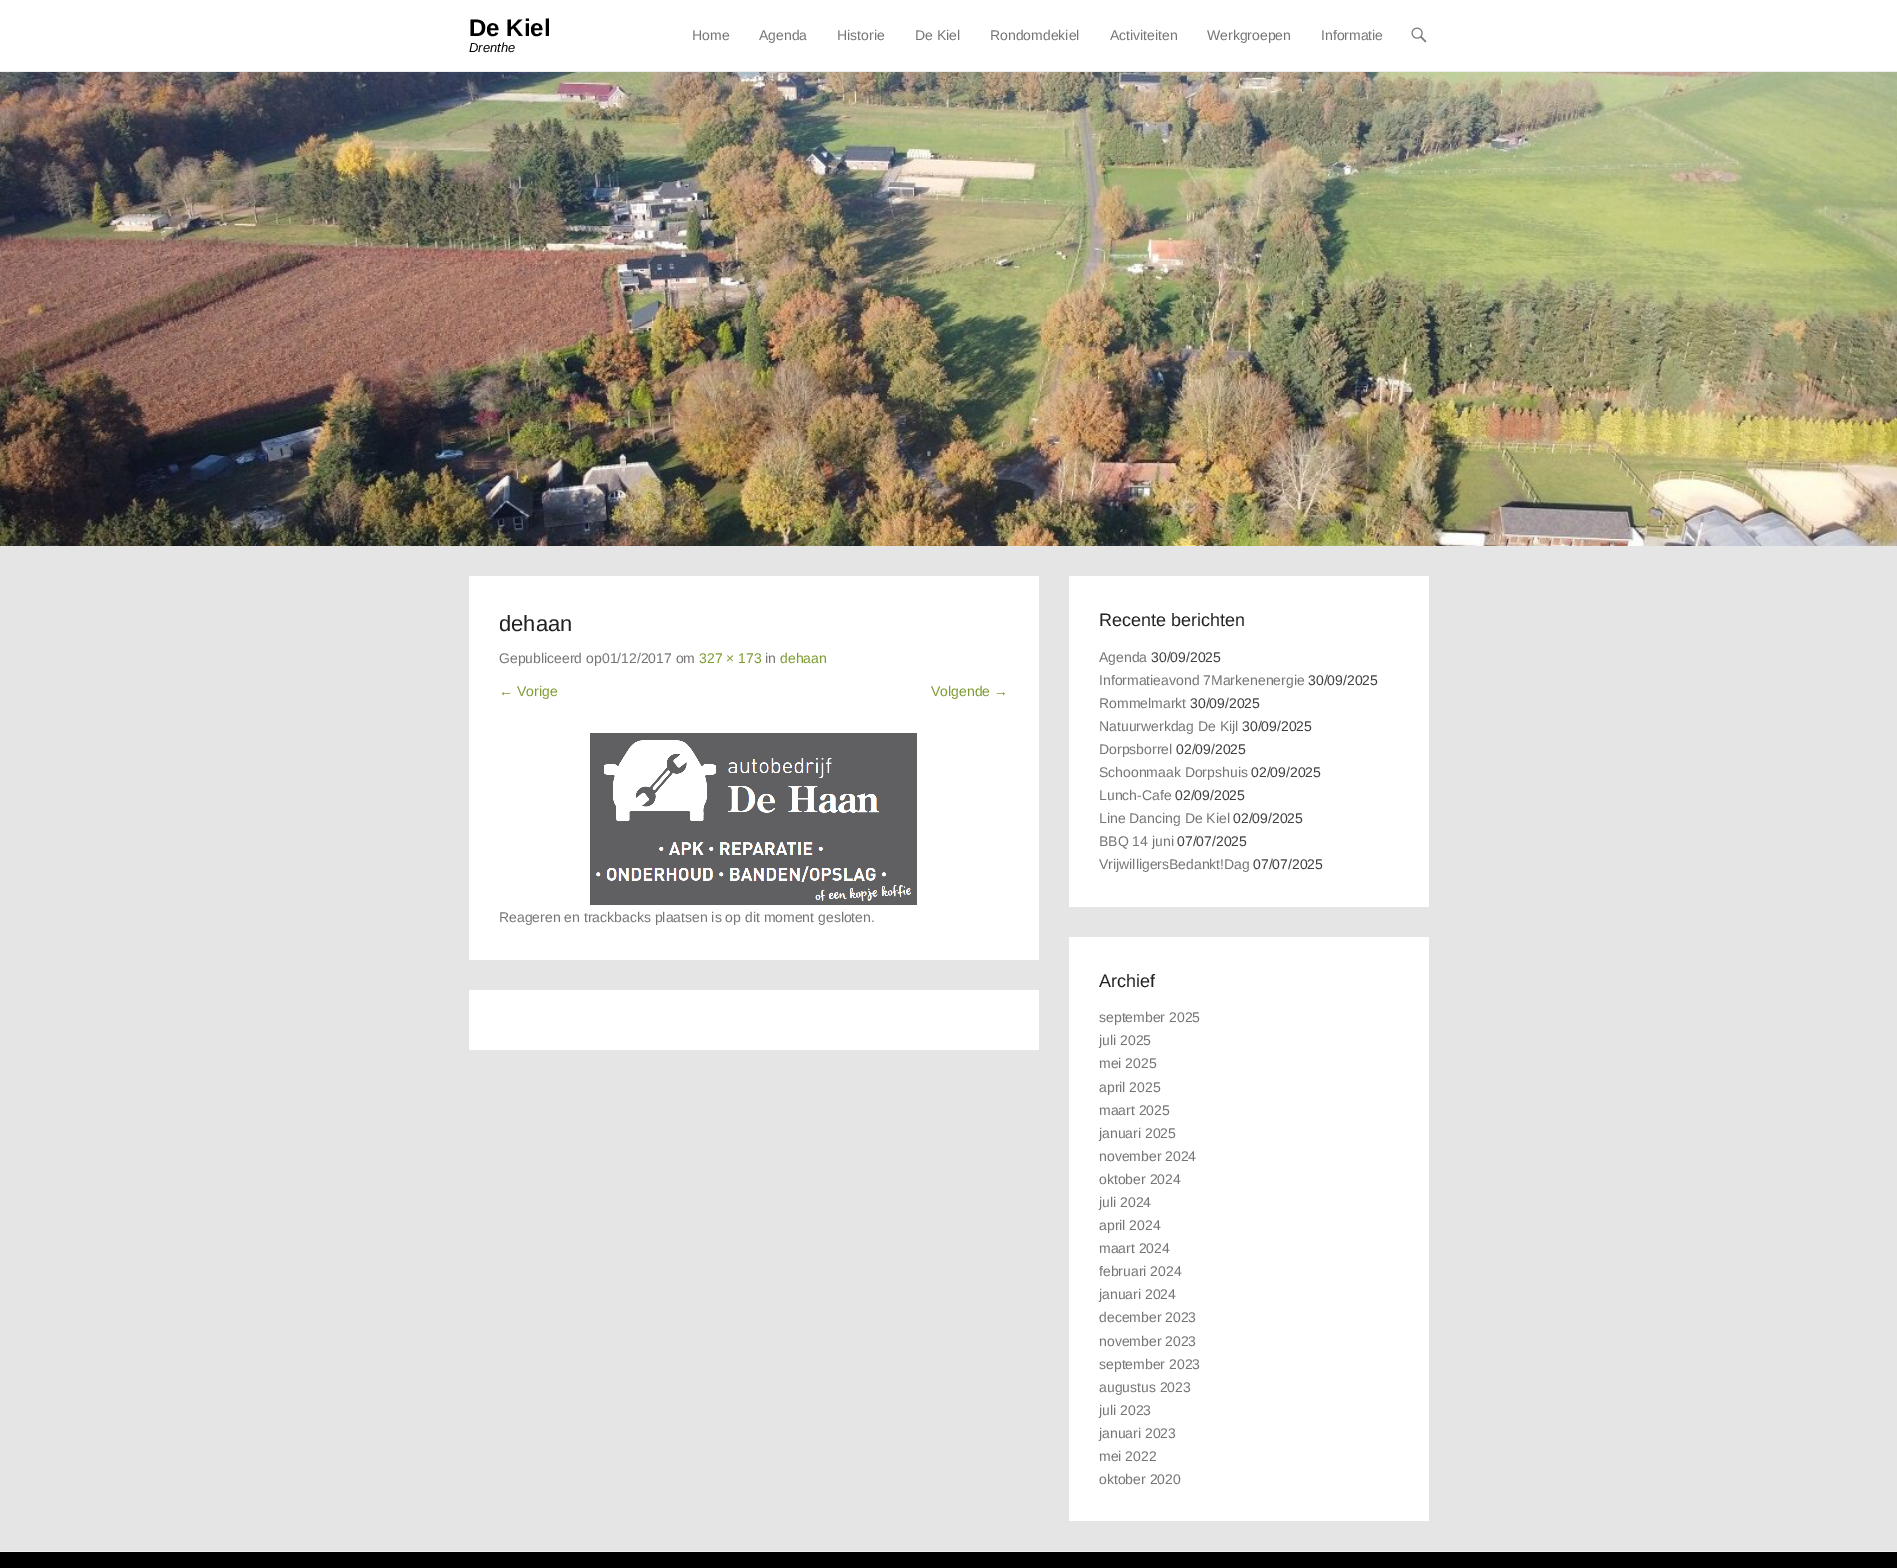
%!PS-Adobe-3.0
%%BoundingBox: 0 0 1897 1568
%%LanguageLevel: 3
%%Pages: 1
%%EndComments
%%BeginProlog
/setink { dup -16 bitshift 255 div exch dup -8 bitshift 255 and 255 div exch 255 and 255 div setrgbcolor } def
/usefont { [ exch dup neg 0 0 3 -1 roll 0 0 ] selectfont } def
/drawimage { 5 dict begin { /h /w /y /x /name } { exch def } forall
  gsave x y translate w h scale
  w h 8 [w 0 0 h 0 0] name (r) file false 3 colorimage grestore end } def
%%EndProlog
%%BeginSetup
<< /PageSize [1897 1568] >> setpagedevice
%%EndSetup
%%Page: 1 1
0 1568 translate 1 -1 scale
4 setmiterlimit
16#E5E5E5 setink
0 0 1897 1568 rectfill
16#FFFFFF setink
0 0 1897 71 rectfill
16#EEEEEE setink
0 71 1897 1 rectfill
/LiberationSans-Bold 24 usefont
16#000000 setink
469 36 moveto (De Kiel) show
/LiberationSans-Italic 13 usefont
469 52 moveto (Drenthe) show
/LiberationSans-Regular 14 usefont
16#757575 setink
[
    [(Home) 692 40]
    [(Agenda) 759 40]
    [(Historie) 837 40]
    [(De Kiel) 915 40]
    [(Rondomdekiel) 990 40]
    [(Activiteiten) 1110 40]
    [(Werkgroepen) 1207 40]
    [(Informatie) 1321 40]
] { aload pop moveto show } forall
(img1.raw) 1411 27 16 16 drawimage
(img2.raw) 0 72 1897 474 drawimage
16#FFFFFF setink
469 576 570 384 rectfill
/LiberationSans-Regular 22 usefont
16#222222 setink
499 631 moveto (dehaan) show
/LiberationSans-Regular 14 usefont
16#757575 setink
499 663 moveto (Gepubliceerd op01/12/2017 om) show
16#7C9B30 setink
699 663 moveto (327 × 173) show
16#757575 setink
765 663 moveto (in) show
16#7C9B30 setink
[
    [(dehaan) 780 663]
    [(← Vorige) 499 696]
    [(Volgende →) 931 696]
] { aload pop moveto show } forall
(img3.raw) 590 733 327 172 drawimage
16#757575 setink
499 922 moveto (Reageren en trackbacks plaatsen is op dit moment gesloten.) show
16#FFFFFF setink
469 990 570 60 rectfill
1069 576 360 331 rectfill
/LiberationSans-Regular 18 usefont
16#222222 setink
1099 626 moveto (Recente berichten) show
/LiberationSans-Regular 14 usefont
16#757575 setink
1099 662 moveto (Agenda) show
16#404040 setink
1151 662 moveto (30/09/2025) show
16#757575 setink
1099 685 moveto (Informatieavond 7Markenenergie) show
16#404040 setink
1308 685 moveto (30/09/2025) show
16#757575 setink
1099 708 moveto (Rommelmarkt) show
16#404040 setink
1190 708 moveto (30/09/2025) show
16#757575 setink
1099 731 moveto (Natuurwerkdag De Kijl) show
16#404040 setink
1242 731 moveto (30/09/2025) show
16#757575 setink
1099 754 moveto (Dorpsborrel) show
16#404040 setink
1176 754 moveto (02/09/2025) show
16#757575 setink
1099 777 moveto (Schoonmaak Dorpshuis) show
16#404040 setink
1251 777 moveto (02/09/2025) show
16#757575 setink
1099 800 moveto (Lunch-Cafe) show
16#404040 setink
1175 800 moveto (02/09/2025) show
16#757575 setink
1099 823 moveto (Line Dancing De Kiel) show
16#404040 setink
1233 823 moveto (02/09/2025) show
16#757575 setink
1099 846 moveto (BBQ 14 juni) show
16#404040 setink
1177 846 moveto (07/07/2025) show
16#757575 setink
1099 869 moveto (VrijwilligersBedankt!Dag) show
16#404040 setink
1253 869 moveto (07/07/2025) show
16#FFFFFF setink
1069 937 360 584 rectfill
/LiberationSans-Regular 18 usefont
16#222222 setink
1099 987 moveto (Archief) show
/LiberationSans-Regular 14 usefont
16#757575 setink
[
    [(september 2025) 1099 1022]
    [(juli 2025) 1099 1045]
    [(mei 2025) 1099 1068]
    [(april 2025) 1099 1092]
    [(maart 2025) 1099 1115]
    [(januari 2025) 1099 1138]
    [(november 2024) 1099 1161]
    [(oktober 2024) 1099 1184]
    [(juli 2024) 1099 1207]
    [(april 2024) 1099 1230]
    [(maart 2024) 1099 1253]
    [(februari 2024) 1099 1276]
    [(januari 2024) 1099 1299]
    [(december 2023) 1099 1322]
    [(november 2023) 1099 1346]
    [(september 2023) 1099 1369]
    [(augustus 2023) 1099 1392]
    [(juli 2023) 1099 1415]
    [(januari 2023) 1099 1438]
    [(mei 2022) 1099 1461]
    [(oktober 2020) 1099 1484]
] { aload pop moveto show } forall
16#EEEEEE setink
0 1551 1897 1 rectfill
16#000000 setink
0 1552 1897 16 rectfill
showpage
%%EOF
